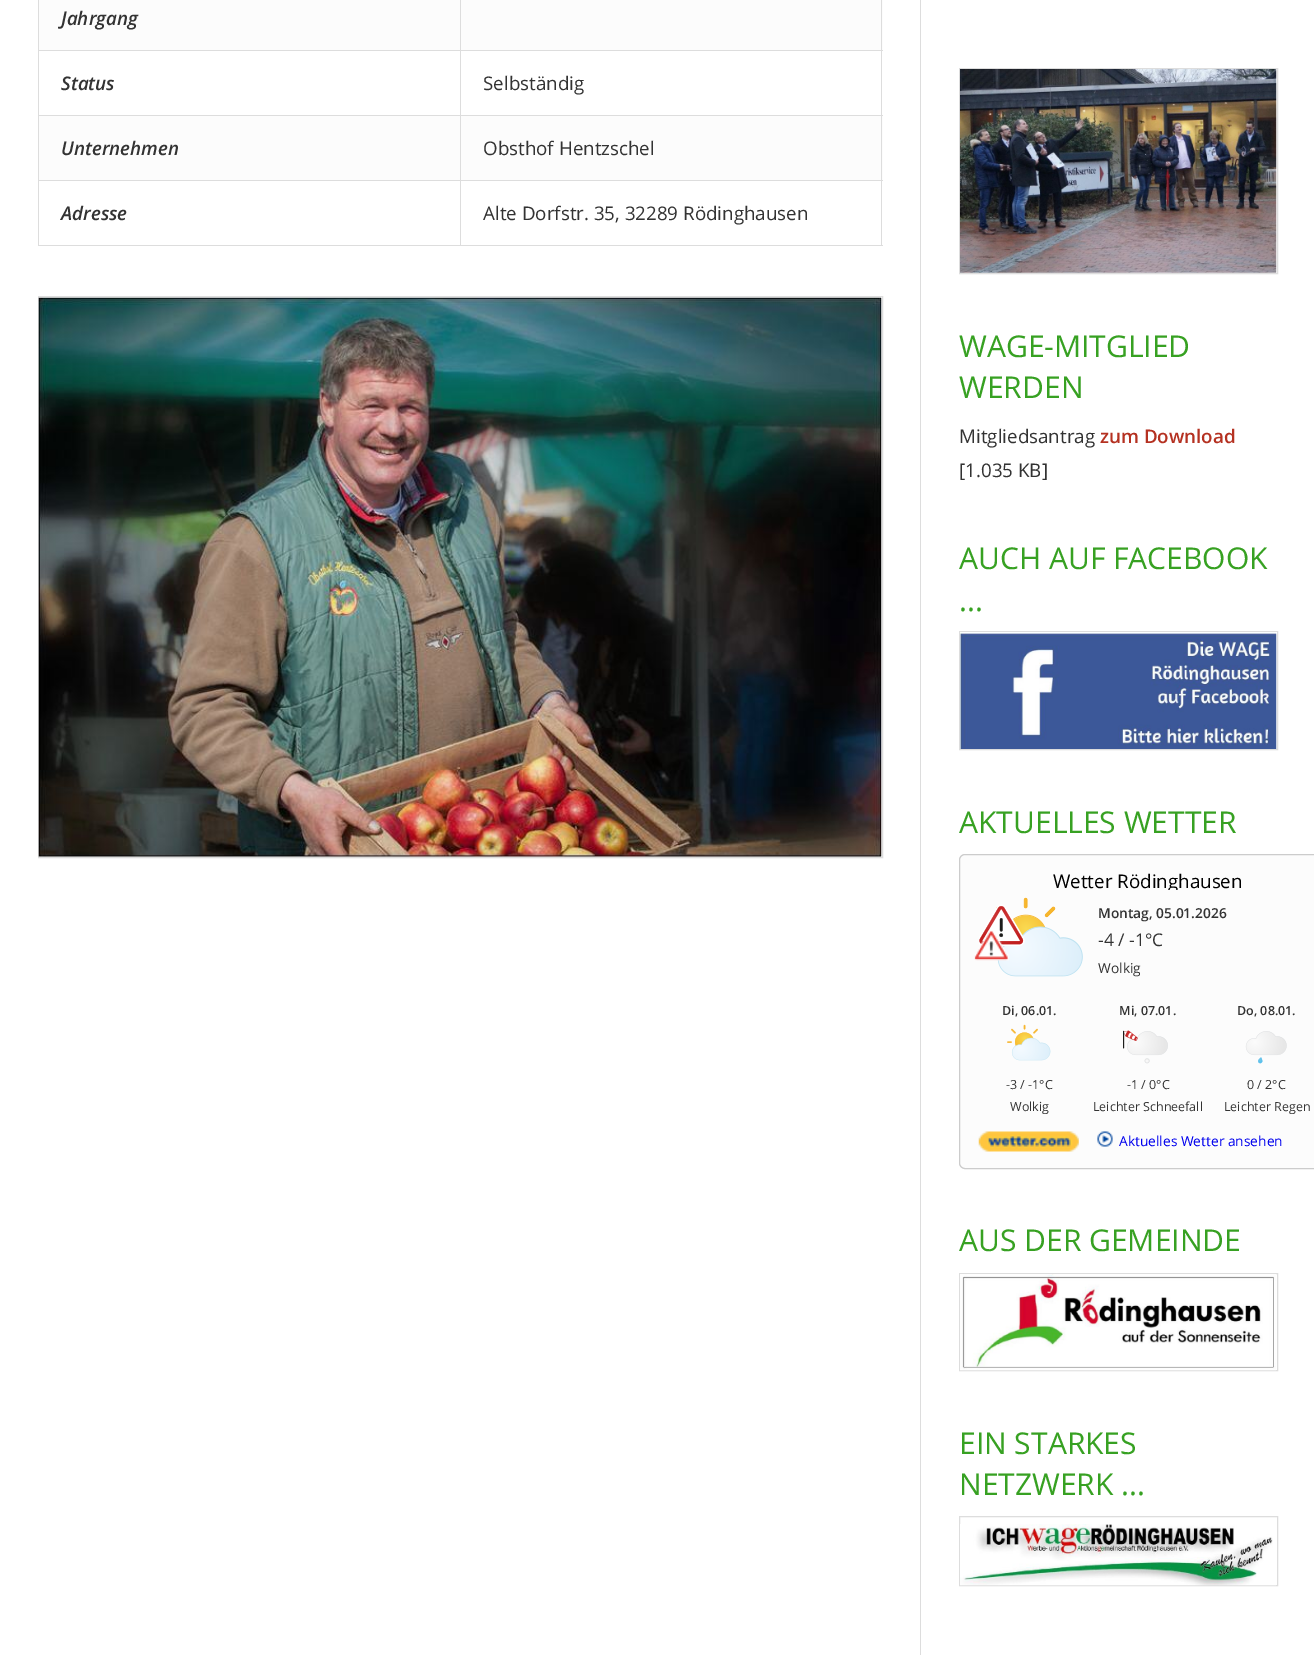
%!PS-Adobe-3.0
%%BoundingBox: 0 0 1314 1655
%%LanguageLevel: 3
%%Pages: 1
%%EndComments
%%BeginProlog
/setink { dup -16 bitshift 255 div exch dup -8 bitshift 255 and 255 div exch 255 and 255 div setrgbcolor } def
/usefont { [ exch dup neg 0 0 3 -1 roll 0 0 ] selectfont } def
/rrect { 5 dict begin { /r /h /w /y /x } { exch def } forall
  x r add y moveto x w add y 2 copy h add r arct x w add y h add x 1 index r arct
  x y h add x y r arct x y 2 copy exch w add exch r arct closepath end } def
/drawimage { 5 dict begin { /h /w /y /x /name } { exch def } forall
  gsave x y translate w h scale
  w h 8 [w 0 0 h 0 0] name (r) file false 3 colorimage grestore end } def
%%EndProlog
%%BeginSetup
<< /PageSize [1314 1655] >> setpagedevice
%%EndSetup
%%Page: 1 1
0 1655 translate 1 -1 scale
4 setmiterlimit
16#FFFFFF setink
0 0 1314 1655 rectfill
[
    [39 0 844 50 16#FCFCFC]
    [39 116 844 64 16#FCFCFC]
    [881 0 1 246 16#DDDDDD]
    [38 245 845 1 16#DDDDDD]
    [38 0 1 246 16#DDDDDD]
] { aload pop setink rectfill } forall
/OpenSans-SemiBoldItalic 18.75 usefont
16#333333 setink
61 25 moveto (Jahrgang) show
[
    [460 50 423 1 16#DDDDDD]
    [460 115 423 1 16#DDDDDD]
    [460 180 423 1 16#DDDDDD]
    [460 180 1 66 16#DDDDDD]
    [38 180 423 1 16#DDDDDD]
    [460 115 1 66 16#DDDDDD]
    [38 115 423 1 16#DDDDDD]
    [460 50 1 66 16#DDDDDD]
    [38 50 423 1 16#DDDDDD]
    [460 0 1 51 16#DDDDDD]
] { aload pop setink rectfill } forall
16#333333 setink
61 90 moveto (Status) show
/OpenSans-Regular 18.75 usefont
483 90 moveto (Selbständig) show
/OpenSans-SemiBoldItalic 18.75 usefont
61 155 moveto (Unternehmen) show
/OpenSans-Regular 18.75 usefont
483 155 moveto (Obsthof Hentzschel) show
/OpenSans-SemiBoldItalic 18.75 usefont
61 220 moveto (Adresse) show
/OpenSans-Regular 18.75 usefont
483 220 moveto (Alte Dorfstr. 35, 32289 Rödinghausen) show
16#DDDDDD setink
38.5 296.5 844 561 rectstroke
(img1.raw) 38 297 844 560 drawimage
920 0 1 1655 rectfill
959.5 68.5 318 205 rectstroke
(img2.raw) 960 69 317 204 drawimage
/OpenSans-Regular 30 usefont
16#37A122 setink
959 357 moveto (WAGE-MITGLIED) show
959 398 moveto (WERDEN) show
/OpenSans-Regular 18.75 usefont
16#333333 setink
959 443 moveto (Mitgliedsantrag) show
/OpenSans-SemiBold 18.75 usefont
16#B53121 setink
1100 443 moveto (zum Download) show
/OpenSans-Regular 18.75 usefont
16#333333 setink
959 477 moveto ([1.035 KB]) show
/OpenSans-Regular 30 usefont
16#37A122 setink
959 569 moveto (AUCH AUF FACEBOOK) show
959 611 moveto (...) show
16#DDDDDD setink
959.5 631.5 318 118 rectstroke
(img3.raw) 960 632 317 117 drawimage
16#37A122 setink
959 833 moveto (AKTUELLES WETTER) show
16#FCFCFC setink
959.5 854.5 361 314 5.5 rrect gsave fill grestore
16#CCCCCC setink
stroke
gsave
973 868 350 22 rectclip
/OpenSans-Regular 18.75 usefont
16#000000 setink
1053 888 moveto (Wetter Rödinghausen) show
grestore
(img4.raw) 979 897 104 80 drawimage
(img5.raw) 974 930 35 31 drawimage
/OpenSans-SemiBold 13.75 usefont
16#333333 setink
1098 918 moveto (Montag, 05.01.2026) show
/OpenSans-Regular 17.5 usefont
1098 946 moveto (-4 / -1°C) show
/OpenSans-Regular 13.75 usefont
1098 973 moveto (Wolkig) show
/OpenSans-SemiBold 12.5 usefont
1002 1015 moveto (Di, 06.01.) show
(img6.raw) 1007 1024 44 37 drawimage
/OpenSans-Regular 12.5 usefont
1006 1089 moveto (-3 / -1°C) show
1010 1111 moveto (Wolkig) show
/OpenSans-SemiBold 12.5 usefont
1119 1015 moveto (Mi, 07.01.) show
(img7.raw) 1123 1030 45 34 drawimage
/OpenSans-Regular 12.5 usefont
1127 1089 moveto (-1 / 0°C) show
1093 1111 moveto (Leichter Schneefall) show
/OpenSans-SemiBold 12.5 usefont
1237 1015 moveto (Do, 08.01.) show
(img8.raw) 1245 1031 42 33 drawimage
/OpenSans-Regular 12.5 usefont
1247 1089 moveto (0 / 2°C) show
1224 1111 moveto (Leichter Regen) show
(img9.raw) 978 1131 101 21 drawimage
(img10.raw) 1097 1131 16 16 drawimage
/OpenSans-Regular 13.75 usefont
16#0000EE setink
1119 1146 moveto (Aktuelles Wetter ansehen) show
/OpenSans-Regular 30 usefont
16#37A122 setink
959 1251 moveto (AUS DER GEMEINDE) show
16#DDDDDD setink
959.5 1273.5 318 97 rectstroke
(img11.raw) 960 1274 316 97 drawimage
16#37A122 setink
959 1454 moveto (EIN STARKES) show
959 1495 moveto (NETZWERK ...) show
16#DDDDDD setink
959.5 1516.5 318 69 rectstroke
(img12.raw) 960 1524 316 62 drawimage
showpage
%%EOF
